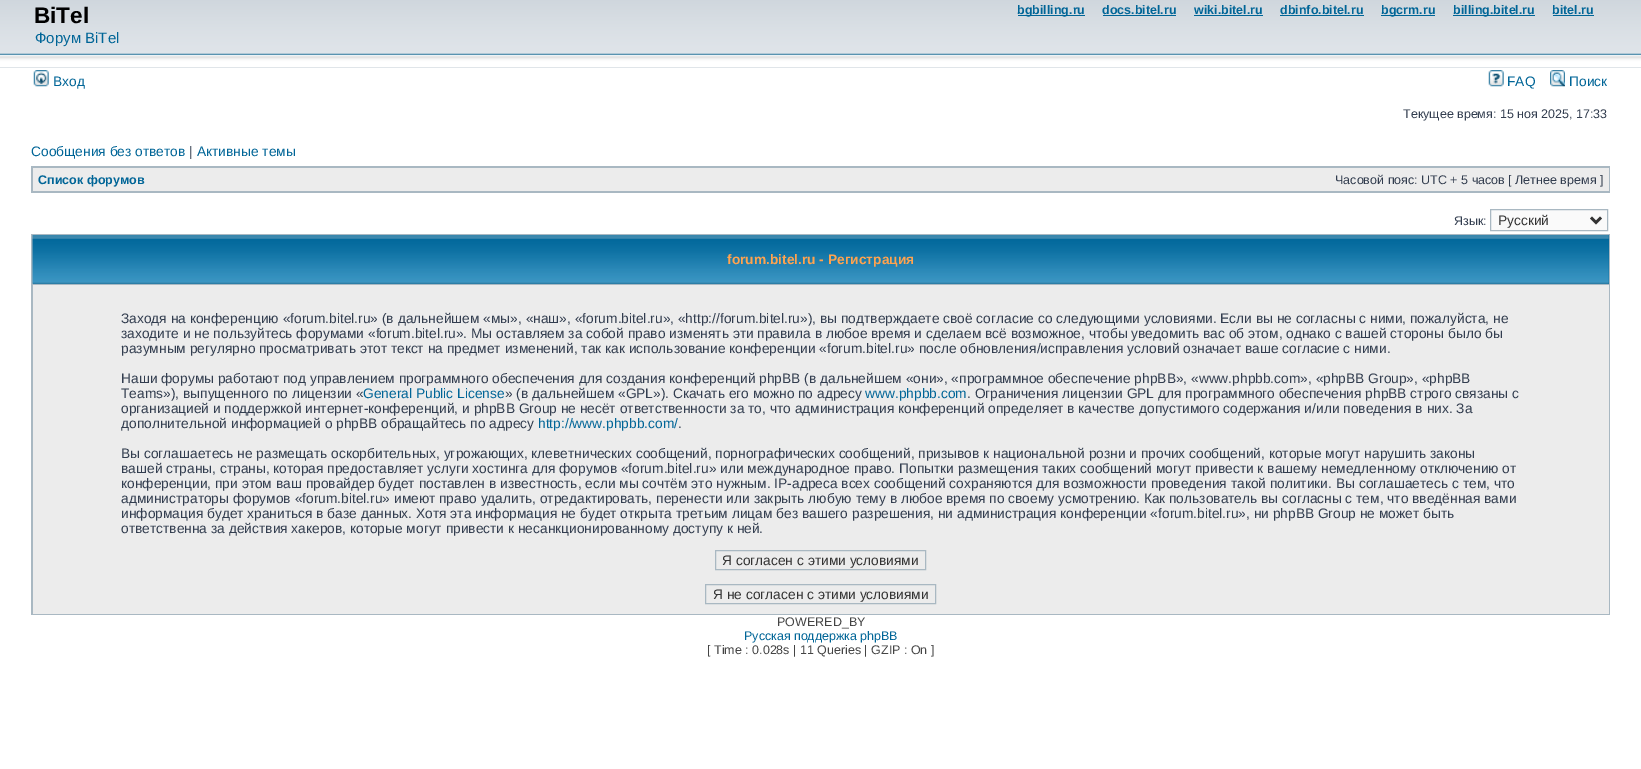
%!PS-Adobe-3.0
%%BoundingBox: 0 0 1641 769
%%LanguageLevel: 3
%%Pages: 1
%%EndComments
%%BeginProlog
/setink { dup -16 bitshift 255 div exch dup -8 bitshift 255 and 255 div exch 255 and 255 div setrgbcolor } def
/usefont { [ exch dup neg 0 0 3 -1 roll 0 0 ] selectfont } def
/drawimage { 5 dict begin { /h /w /y /x /name } { exch def } forall
  gsave x y translate w h scale
  w h 8 [w 0 0 h 0 0] name (r) file false 3 colorimage grestore end } def
%%EndProlog
%%BeginSetup
<< /PageSize [1641 769] >> setpagedevice
%%EndSetup
%%Page: 1 1
0 769 translate 1 -1 scale
4 setmiterlimit
16#FFFFFF setink
0 0 1641 769 rectfill
16#C1CAD2 setink
0 67 1641 1 rectfill
(img1.raw) 0 0 1641 68 drawimage
/LiberationSans-Bold 22.5 usefont
16#000000 setink
34 23 moveto (BiTel) show
/LiberationSans-Regular 15 usefont
16#006597 setink
35 43 moveto (Форум BiTel) show
1018 15 67 1 rectfill
/LiberationSans-Bold 12.5 usefont
1017 14 moveto (bgbilling.ru) show
1102 14 moveto (docs.bitel.ru) show
1103 15 73 1 rectfill
1194 14 moveto (wiki.bitel.ru) show
1194 15 69 1 rectfill
1280 14 moveto (dbinfo.bitel.ru) show
1280 15 84 1 rectfill
1381 15 54 1 rectfill
1381 14 moveto (bgcrm.ru) show
1453 15 82 1 rectfill
1453 14 moveto (billing.bitel.ru) show
1552 14 moveto (bitel.ru) show
1553 15 41 1 rectfill
(img2.raw) 33 70 16 17 drawimage
/LiberationSans-Regular 13.75 usefont
53 86 moveto (Вход) show
(img3.raw) 1488 70 16 17 drawimage
1507 86 moveto (FAQ) show
(img4.raw) 1550 70 15 17 drawimage
1569 86 moveto (Поиск) show
/LiberationSans-Regular 12.5 usefont
16#323D4F setink
1403 118 moveto (Текущее время: 15 ноя 2025, 17:33) show
/LiberationSans-Regular 13.75 usefont
16#006597 setink
31 156 moveto (Сообщения без ответов) show
16#323D4F setink
189 156 moveto (|) show
16#006597 setink
197 156 moveto (Активные темы) show
16#A9B8C2 setink
31 166 1579 27 rectfill
16#ECECEC setink
33 168 1576 23 rectfill
/LiberationSans-Bold 12.5 usefont
16#006597 setink
38 184 moveto (Список форумов) show
/LiberationSans-Regular 12.5 usefont
16#323D4F setink
1335 184 moveto (Часовой пояс: UTC + 5 часов [ Летнее время ]) show
1454 225 moveto (Язык:) show
16#FAFAFA setink
1490.5 209.5 moveto 1607.5 209.5 lineto 1607.5 230.5 lineto 1490.5 230.5 lineto closepath gsave fill grestore
16#A9B8C2 setink
stroke
16#333333 setink
2.5 setlinewidth
1591 217.5 moveto 1596 222.5 lineto 1601 217.5 lineto stroke
/LiberationSans-Regular 13.75 usefont
1498 225 moveto (Русский) show
16#A9B8C2 setink
31 234 1579 381 rectfill
16#006699 setink
33 235 1576 49 rectfill
(img5.raw) 32 235 1577 49 drawimage
/LiberationSans-Bold 13.75 usefont
16#FFA34F setink
727 264 moveto (forum.bitel.ru - Регистрация) show
16#ECECEC setink
33 285 1576 329 rectfill
/LiberationSans-Regular 13.75 usefont
16#323D4F setink
[
    [(Заходя на конференцию «forum.bitel.ru» \(в дальнейшем «мы», «наш», «forum.bitel.ru», «http://forum.bitel.ru»\), вы подтверждаете своё согласие со следующими условиями. Если вы не согласны с ними, пожалуйста, не) 121 323]
    [(заходите и не пользуйтесь форумами «forum.bitel.ru». Мы оставляем за собой право изменять эти правила в любое время и сделаем всё возможное, чтобы уведомить вас об этом, однако с вашей стороны было бы) 121 338]
    [(разумным регулярно просматривать этот текст на предмет изменений, так как использование конференции «forum.bitel.ru» после обновления/исправления условий означает ваше согласие с ними.) 121 353]
    [(Наши форумы работают под управлением программного обеспечения для создания конференций phpBB \(в дальнейшем «они», «программное обеспечение phpBB», «www.phpbb.com», «phpBB Group», «phpBB) 121 383]
    [(Teams»\), выпущенного по лицензии «) 121 398]
] { aload pop moveto show } forall
16#006597 setink
363 398 moveto (General Public License) show
16#323D4F setink
505 398 moveto (» \(в дальнейшем «GPL»\). Скачать его можно по адресу) show
16#006597 setink
865 398 moveto (www.phpbb.com) show
16#323D4F setink
[
    [(. Ограничения лицензии GPL для программного обеспечения phpBB строго связаны с) 967 398]
    [(организацией и поддержкой интернет-конференций, и phpBB Group не несёт ответственности за то, что администрация конференций определяет в качестве допустимого содержания и/или поведения в них. За) 121 413]
    [(дополнительной информацией о phpBB обращайтесь по адресу) 121 428]
] { aload pop moveto show } forall
16#006597 setink
538 428 moveto (http://www.phpbb.com/) show
16#323D4F setink
[
    [(.) 678 428]
    [(Вы соглашаетесь не размещать оскорбительных, угрожающих, клеветнических сообщений, порнографических сообщений, призывов к национальной розни и прочих сообщений, которые могут нарушить законы) 121 458]
    [(вашей страны, страны, которая предоставляет услуги хостинга для форумов «forum.bitel.ru» или международное право. Попытки размещения таких сообщений могут привести к вашему немедленному отключению от) 121 473]
    [(конференции, при этом ваш провайдер будет поставлен в известность, если мы сочтём это нужным. IP-адреса всех сообщений сохраняются для возможности проведения такой политики. Вы соглашаетесь с тем, что) 121 488]
    [(администраторы форумов «forum.bitel.ru» имеют право удалить, отредактировать, перенести или закрыть любую тему в любое время по своему усмотрению. Как пользователь вы согласны с тем, что введённая вами) 121 503]
    [(информация будет храниться в базе данных. Хотя эта информация не будет открыта третьим лицам без вашего разрешения, ни администрация конференции «forum.bitel.ru», ни phpBB Group не может быть) 121 518]
    [(ответственна за действия хакеров, которые могут привести к несанкционированному доступу к ней.) 121 533]
] { aload pop moveto show } forall
16#A9B8C2 setink
1 setlinewidth
715.5 550.5 210 19 rectstroke
16#333333 setink
722 565 moveto (Я согласен с этими условиями) show
16#A9B8C2 setink
705.5 584.5 230 19 rectstroke
16#333333 setink
713 599 moveto (Я не согласен с этими условиями) show
/LiberationSans-Regular 12.5 usefont
16#444444 setink
777 626 moveto (POWERED_BY) show
16#006597 setink
744 640 moveto (Русская поддержка phpBB) show
16#444444 setink
707 654 moveto ([ Time : 0.028s | 11 Queries | GZIP : On ]) show
showpage
%%EOF
